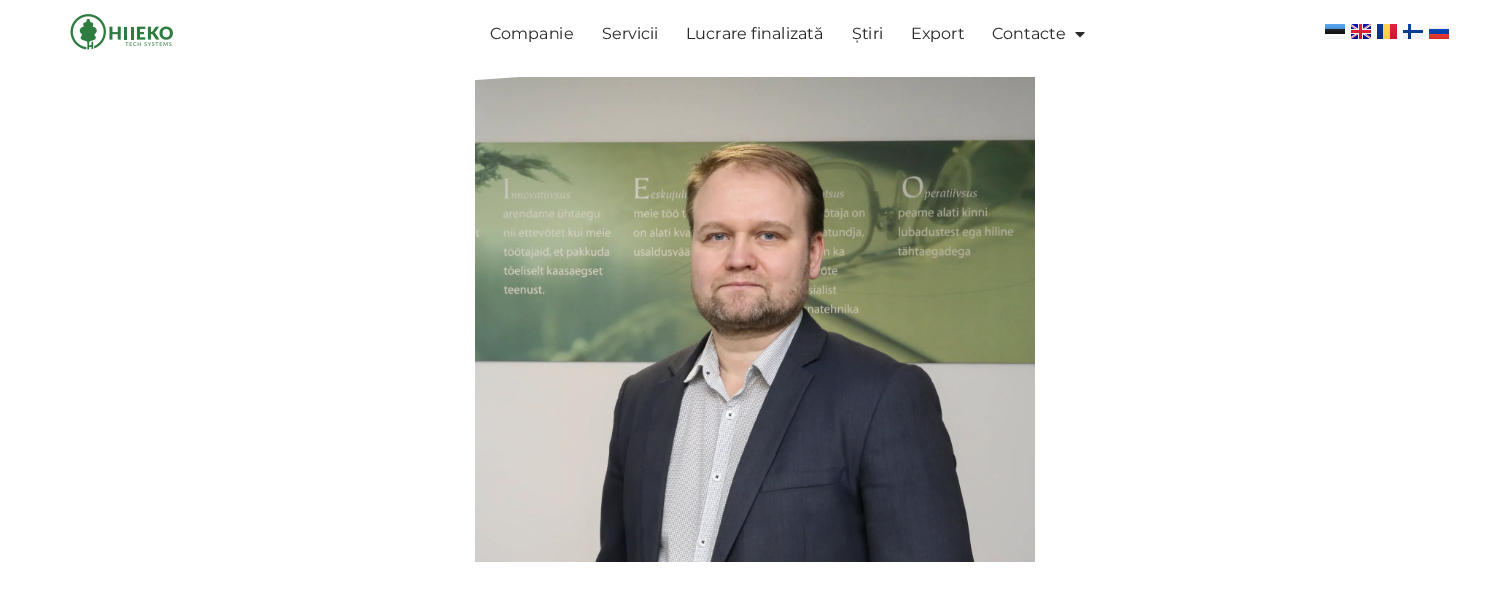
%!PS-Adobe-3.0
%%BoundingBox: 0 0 1510 604
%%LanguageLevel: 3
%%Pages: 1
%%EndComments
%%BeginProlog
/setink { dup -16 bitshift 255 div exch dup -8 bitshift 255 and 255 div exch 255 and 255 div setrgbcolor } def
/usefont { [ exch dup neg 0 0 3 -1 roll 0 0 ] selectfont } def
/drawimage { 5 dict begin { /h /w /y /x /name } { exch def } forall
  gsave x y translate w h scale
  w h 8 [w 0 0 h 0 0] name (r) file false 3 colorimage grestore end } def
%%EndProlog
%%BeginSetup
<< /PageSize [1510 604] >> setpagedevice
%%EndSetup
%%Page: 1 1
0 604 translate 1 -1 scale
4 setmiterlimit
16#FFFFFF setink
0 0 1510 604 rectfill
gsave 1325 24 moveto 1345 24 lineto 1345 29 lineto 1325 29 lineto closepath clip newpath
<< /ShadingType 2 /ColorSpace /DeviceRGB /Coords [1335 24 1335 29] /Extend [true true] /Function << /FunctionType 2 /Domain [0 1] /C0 [0.365 0.659 0.945] /C1 [0.282 0.573 0.855] /N 1 >> >> shfill grestore
gsave 1325 29 moveto 1345 29 lineto 1345 34 lineto 1325 34 lineto closepath clip newpath
<< /ShadingType 2 /ColorSpace /DeviceRGB /Coords [1335 29 1335 34] /Extend [true true] /Function << /FunctionType 2 /Domain [0 1] /C0 [0.149 0.149 0.149] /C1 [0.051 0.051 0.051] /N 1 >> >> shfill grestore
gsave 1325 35 moveto 1345 35 lineto 1345 39 lineto 1325 39 lineto closepath clip newpath
<< /ShadingType 2 /ColorSpace /DeviceRGB /Coords [1335 34 1335 39] /Extend [true true] /Function << /FunctionType 2 /Domain [0 1] /C0 [1 1 1] /C1 [0.941 0.941 0.941] /N 1 >> >> shfill grestore
(img3.raw) 1351 24 20 15 drawimage
gsave 1377 24 moveto 1383 24 lineto 1383 39 lineto 1377 39 lineto closepath clip newpath
<< /ShadingType 2 /ColorSpace /DeviceRGB /Coords [1380 24 1380 39] /Extend [true true] /Function << /FunctionType 2 /Domain [0 1] /C0 [0.039 0.239 0.612] /C1 [0.016 0.18 0.49] /N 1 >> >> shfill grestore
gsave 1383 24 moveto 1390 24 lineto 1390 39 lineto 1383 39 lineto closepath clip newpath
<< /ShadingType 2 /ColorSpace /DeviceRGB /Coords [1387 24 1387 39] /Extend [true true] /Function << /FunctionType 2 /Domain [0 1] /C0 [1 0.851 0.333] /C1 [0.988 0.816 0.212] /N 1 >> >> shfill grestore
gsave 1390 24 moveto 1397 24 lineto 1397 39 lineto 1390 39 lineto closepath clip newpath
<< /ShadingType 2 /ColorSpace /DeviceRGB /Coords [1392 24 1392 39] /Extend [true true] /Function << /FunctionType 2 /Domain [0 1] /C0 [0.898 0.145 0.239] /C1 [0.8 0.086 0.173] /N 1 >> >> shfill grestore
(img4.raw) 1403 24 20 15 drawimage
gsave 1429 25 moveto 1449 25 lineto 1449 29 lineto 1429 29 lineto closepath clip newpath
<< /ShadingType 2 /ColorSpace /DeviceRGB /Coords [1439 24 1439 29] /Extend [true true] /Function << /FunctionType 2 /Domain [0 1] /C0 [1 1 1] /C1 [0.941 0.941 0.941] /N 1 >> >> shfill grestore
gsave 1429 29 moveto 1449 29 lineto 1449 34 lineto 1429 34 lineto closepath clip newpath
<< /ShadingType 2 /ColorSpace /DeviceRGB /Coords [1439 29 1439 34] /Extend [true true] /Function << /FunctionType 2 /Domain [0 1] /C0 [0.047 0.278 0.718] /C1 [0.027 0.239 0.643] /N 1 >> >> shfill grestore
gsave 1429 34 moveto 1449 34 lineto 1449 39 lineto 1429 39 lineto closepath clip newpath
<< /ShadingType 2 /ColorSpace /DeviceRGB /Coords [1439 34 1439 39] /Extend [true true] /Function << /FunctionType 2 /Domain [0 1] /C0 [0.898 0.231 0.208] /C1 [0.827 0.18 0.157] /N 1 >> >> shfill grestore
(img5.raw) 475 77 560 485 drawimage
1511 6 moveto 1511 -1 lineto -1 -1 lineto -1 114 lineto closepath fill
(img1.raw) 70 14 103 36 drawimage
/Montserrat-Regular 16 usefont
16#2B2B2B setink
[
    [(Companie) 490 39]
    [(Servicii) 602 39]
    [(Lucrare finalizată) 686 39]
    [(Știri) 852 39]
    [(Export) 911 39]
    [(Contacte) 992 39]
] { aload pop moveto show } forall
(img2.raw) 1075 32 10 6 drawimage
showpage
%%EOF
